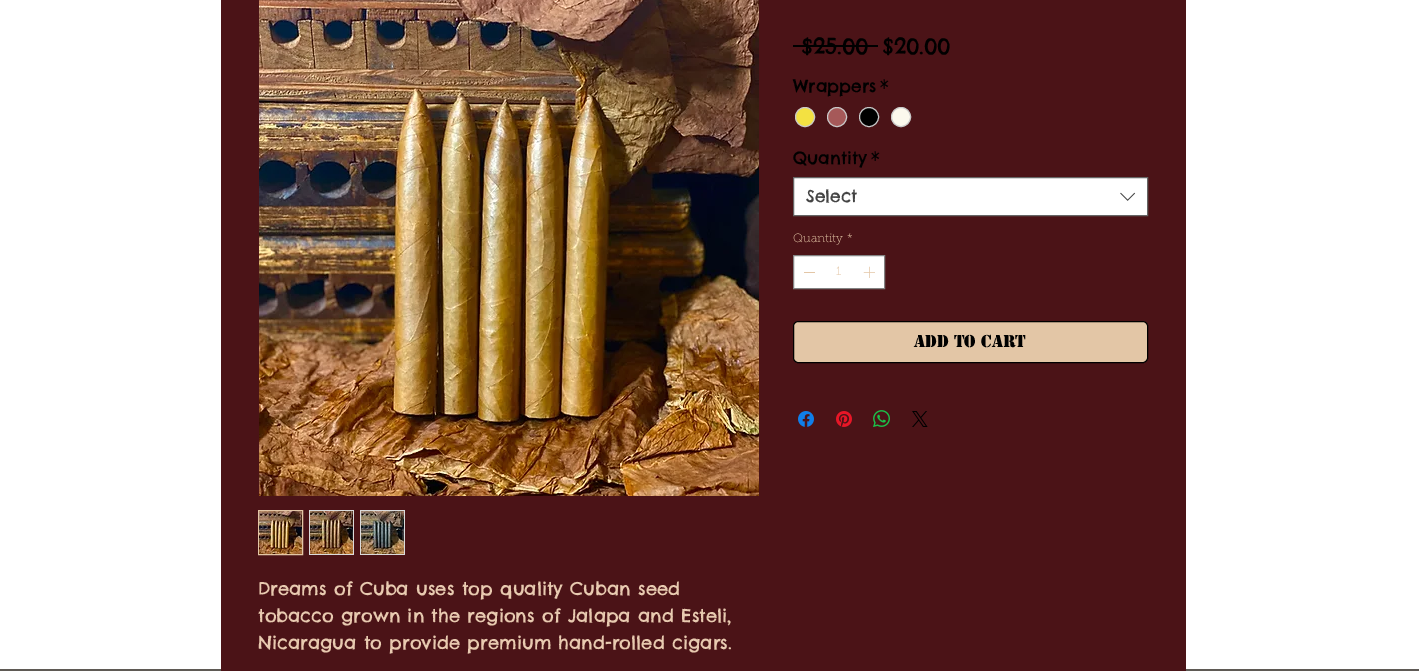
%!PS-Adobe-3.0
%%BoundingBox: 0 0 1419 671
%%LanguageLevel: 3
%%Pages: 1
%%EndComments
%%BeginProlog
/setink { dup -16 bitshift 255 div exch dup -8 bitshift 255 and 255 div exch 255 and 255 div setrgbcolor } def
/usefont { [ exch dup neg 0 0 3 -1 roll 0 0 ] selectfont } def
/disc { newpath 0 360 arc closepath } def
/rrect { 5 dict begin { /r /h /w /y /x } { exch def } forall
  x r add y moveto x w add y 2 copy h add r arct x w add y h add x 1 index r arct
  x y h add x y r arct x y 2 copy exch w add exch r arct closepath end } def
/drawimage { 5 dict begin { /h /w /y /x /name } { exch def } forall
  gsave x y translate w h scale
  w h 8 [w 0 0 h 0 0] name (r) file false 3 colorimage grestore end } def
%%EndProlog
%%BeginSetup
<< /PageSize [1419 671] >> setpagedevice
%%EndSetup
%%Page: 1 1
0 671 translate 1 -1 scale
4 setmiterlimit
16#5F5A55 setink
0 0 1419 671 rectfill
16#FFFFFF setink
0 0 1419 669 rectfill
16#4B1317 setink
221 0 965 671 rectfill
/ChelseaMarket-Regular 22 usefont
16#000000 setink
802 54 moveto ($25.00) show
793 45 85 2 rectfill
883 54 moveto ($20.00) show
/ChelseaMarket-Regular 17 usefont
793 92 moveto (Wrappers) show
880 92 moveto (*) show
16#F3E142 setink
805 117 9.5 disc gsave fill grestore
16#C9C9C9 setink
stroke
16#A65959 setink
837 117 9.5 disc gsave fill grestore
16#C9C9C9 setink
stroke
16#000000 setink
869 117 9.5 disc gsave fill grestore
16#C9C9C9 setink
stroke
16#FBF9ED setink
901 117 9.5 disc gsave fill grestore
16#C9C9C9 setink
stroke
16#000000 setink
793 164 moveto (Quantity) show
871 164 moveto (*) show
16#FFFFFF setink
793.5 177.5 moveto 1147.5 177.5 lineto 1147.5 215.5 lineto 793.5 215.5 lineto closepath gsave fill grestore
16#666666 setink
stroke
16#444444 setink
806 202 moveto (Select) show
(img1.raw) 1120 192 16 9 drawimage
/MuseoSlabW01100-Thin 12 usefont
16#E3C6A6 setink
793 242 moveto (Quantity) show
847 242 moveto (*) show
16#FFFFFF setink
793.5 255.5 moveto 884.5 255.5 lineto 884.5 288.5 lineto 793.5 288.5 lineto closepath gsave fill grestore
16#838383 setink
stroke
16#E3C6A6 setink
804 272 11 1 rectfill
836 275 moveto (1) show
(img2.raw) 863 266 12 12 drawimage
793.5 321.5 354 41 4.5 rrect gsave fill grestore
16#000000 setink
stroke
/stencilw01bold-Bold 16 usefont
914 347 moveto (Add to Cart) show
(img3.raw) 798 411 16 16 drawimage
(img4.raw) 836 411 16 16 drawimage
(img5.raw) 873 410 17 17 drawimage
(img6.raw) 912 411 16 16 drawimage
(img7.raw) 259 0 500 496 drawimage
16#E3C6A6 setink
258.5 510.5 44 44 rectstroke
(img8.raw) 259 511 43 43 drawimage
16#DBDBDB setink
309 510 45 45 rectfill
(img9.raw) 310 511 43 43 drawimage
360 510 45 45 rectfill
(img10.raw) 361 511 43 43 drawimage
/ChelseaMarket-Regular 18 usefont
16#E8CAB0 setink
[
    [(Dreams of Cuba uses top quality Cuban seed) 258 595]
    [(tobacco grown in the regions of Jalapa and Esteli,) 258 622]
    [(Nicaragua to provide premium hand-rolled cigars.) 258 649]
] { aload pop moveto show } forall
showpage
%%EOF
